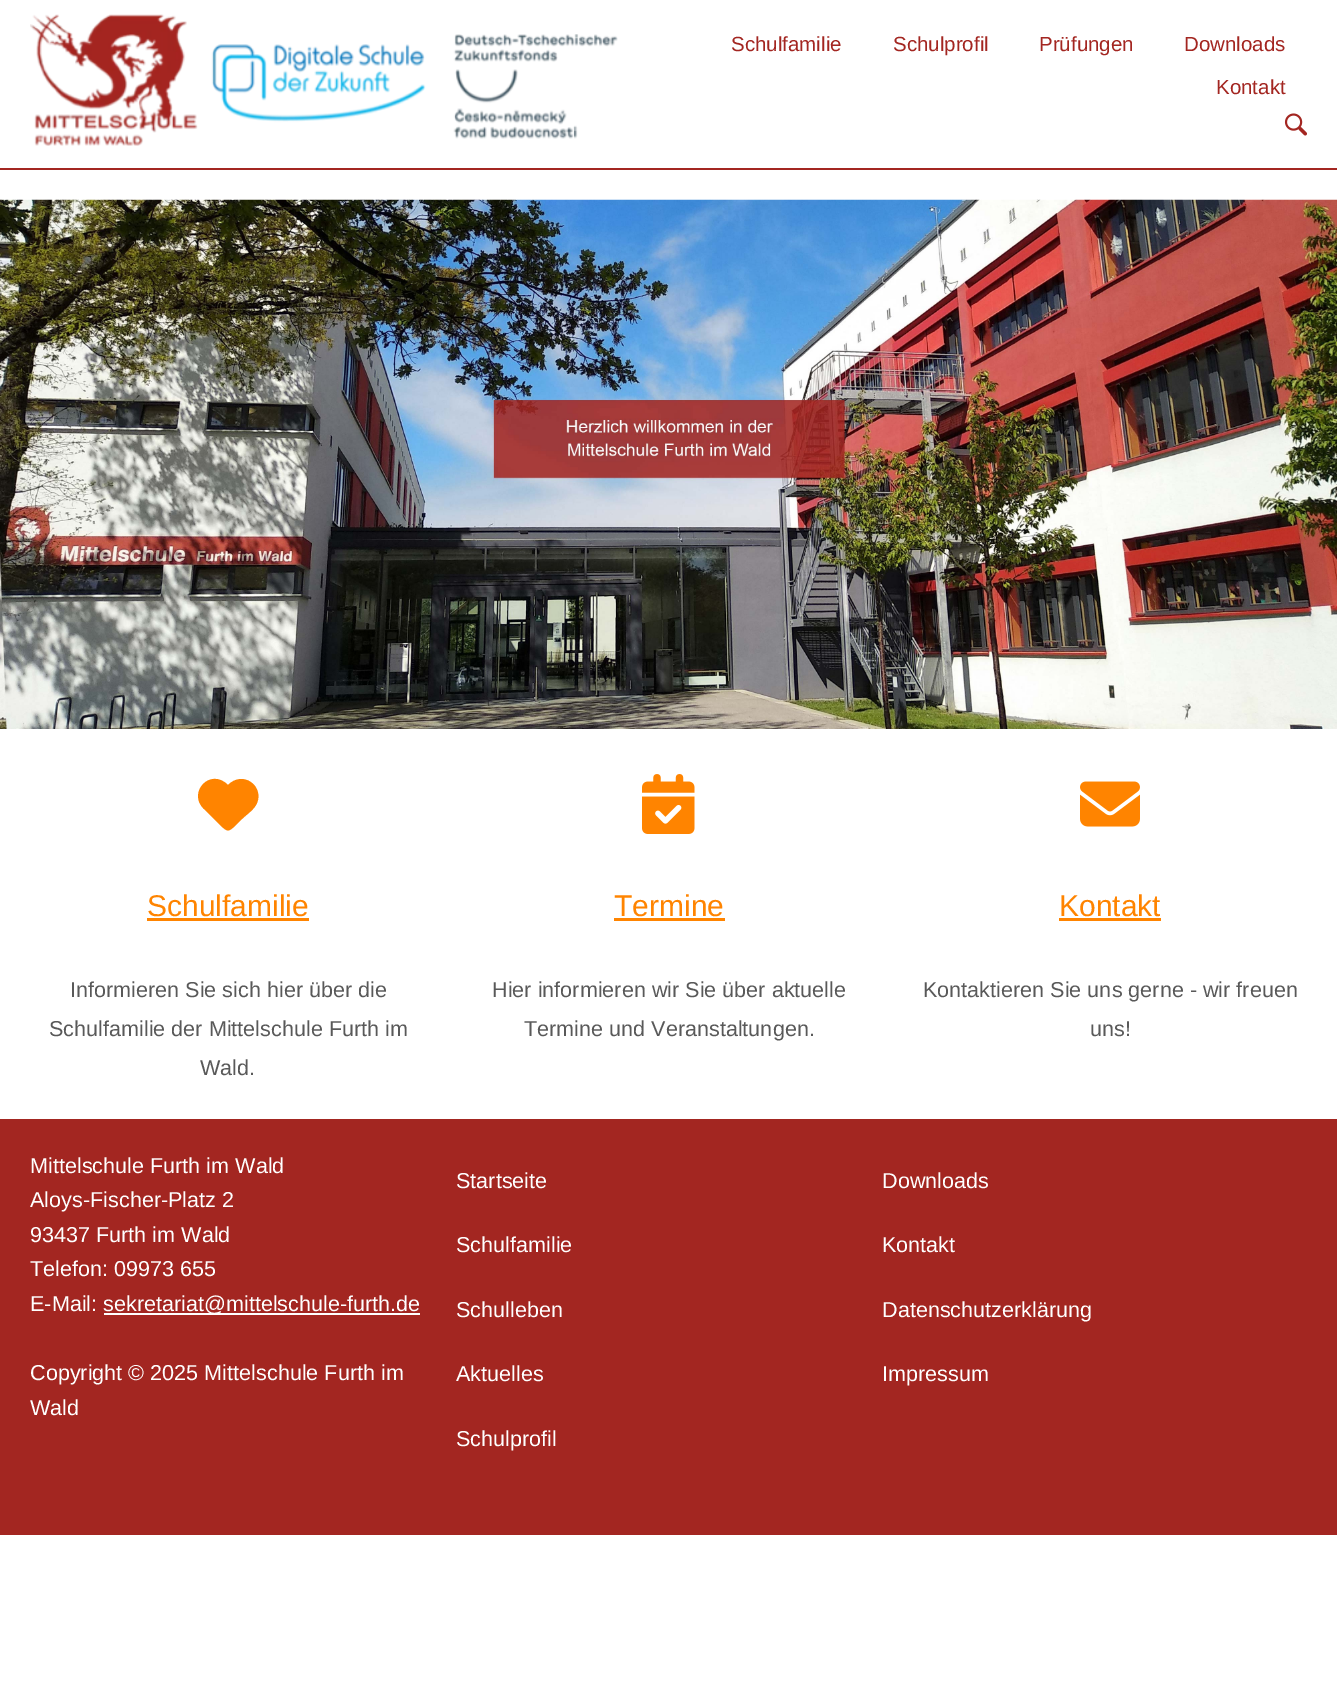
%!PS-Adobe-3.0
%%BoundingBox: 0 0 1337 1702
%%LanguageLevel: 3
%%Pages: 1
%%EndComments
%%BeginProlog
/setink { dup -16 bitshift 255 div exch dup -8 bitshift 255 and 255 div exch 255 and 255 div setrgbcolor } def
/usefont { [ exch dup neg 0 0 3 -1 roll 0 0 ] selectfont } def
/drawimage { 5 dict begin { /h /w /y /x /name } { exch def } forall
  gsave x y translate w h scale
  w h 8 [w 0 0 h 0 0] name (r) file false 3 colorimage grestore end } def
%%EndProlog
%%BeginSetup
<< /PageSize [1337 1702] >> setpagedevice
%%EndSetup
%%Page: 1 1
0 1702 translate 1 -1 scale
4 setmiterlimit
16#FFFFFF setink
0 0 1337 1702 rectfill
16#A32621 setink
0 168 1337 2 rectfill
(img1.raw) 30 14 588 132 drawimage
/LiberationSans-Regular 20.5 usefont
[
    [(Schulfamilie) 731 51]
    [(Schulprofil) 893 51]
    [(Prüfungen) 1039 51]
    [(Downloads) 1184 51]
    [(Kontakt) 1216 94]
] { aload pop moveto show } forall
(img2.raw) 1284 113 23 23 drawimage
(img3.raw) 0 199 1337 530 drawimage
16#FF8400 setink
204 809 moveto 225 829 lineto 204 809 lineto 221 826 lineto 228 832 228 832 235 826 curveto 242 819 lineto 247 814 254 810 257 803 curveto 264 786 243 770 228 785 curveto 210 767 187 793 204 809 curveto closepath fill
/LiberationSans-Regular 30 usefont
147 916 moveto (Schulfamilie) show
147 918 162 3 rectfill
/LiberationSans-Regular 21.6 usefont
16#595959 setink
[
    [(Informieren Sie sich hier über die) 70 997]
    [(Schulfamilie der Mittelschule Furth im) 49 1036]
    [(Wald.) 200 1075]
] { aload pop moveto show } forall
(img4.raw) 642 774 53 60 drawimage
/LiberationSans-Regular 30 usefont
16#FF8400 setink
614 916 moveto (Termine) show
614 918 111 3 rectfill
/LiberationSans-Regular 21.6 usefont
16#595959 setink
492 997 moveto (Hier informieren wir Sie über aktuelle) show
524 1036 moveto (Termine und Veranstaltungen.) show
(img5.raw) 1080 781 60 46 drawimage
/LiberationSans-Regular 30 usefont
16#FF8400 setink
1059 916 moveto (Kontakt) show
1059 918 102 3 rectfill
/LiberationSans-Regular 21.6 usefont
16#595959 setink
923 997 moveto (Kontaktieren Sie uns gerne - wir freuen) show
1090 1036 moveto (uns!) show
16#A32621 setink
0 1119 1337 416 rectfill
16#FFFFFF setink
[
    [(Mittelschule Furth im Wald) 30 1173]
    [(Aloys-Fischer-Platz 2) 30 1207]
    [(93437 Furth im Wald) 30 1242]
    [(Telefon: 09973 655) 30 1276]
    [(E-Mail:) 30 1311]
] { aload pop moveto show } forall
104 1313 316 2 rectfill
[
    [(sekretariat@mittelschule-furth.de) 103 1311]
    [(Copyright © 2025 Mittelschule Furth im) 30 1380]
    [(Wald) 30 1415]
    [(Startseite) 456 1188]
    [(Schulfamilie) 456 1252]
    [(Schulleben) 456 1317]
    [(Aktuelles) 456 1381]
    [(Schulprofil) 456 1446]
    [(Downloads) 882 1188]
    [(Kontakt) 882 1252]
    [(Datenschutzerklärung) 882 1317]
    [(Impressum) 882 1381]
] { aload pop moveto show } forall
showpage
%%EOF
